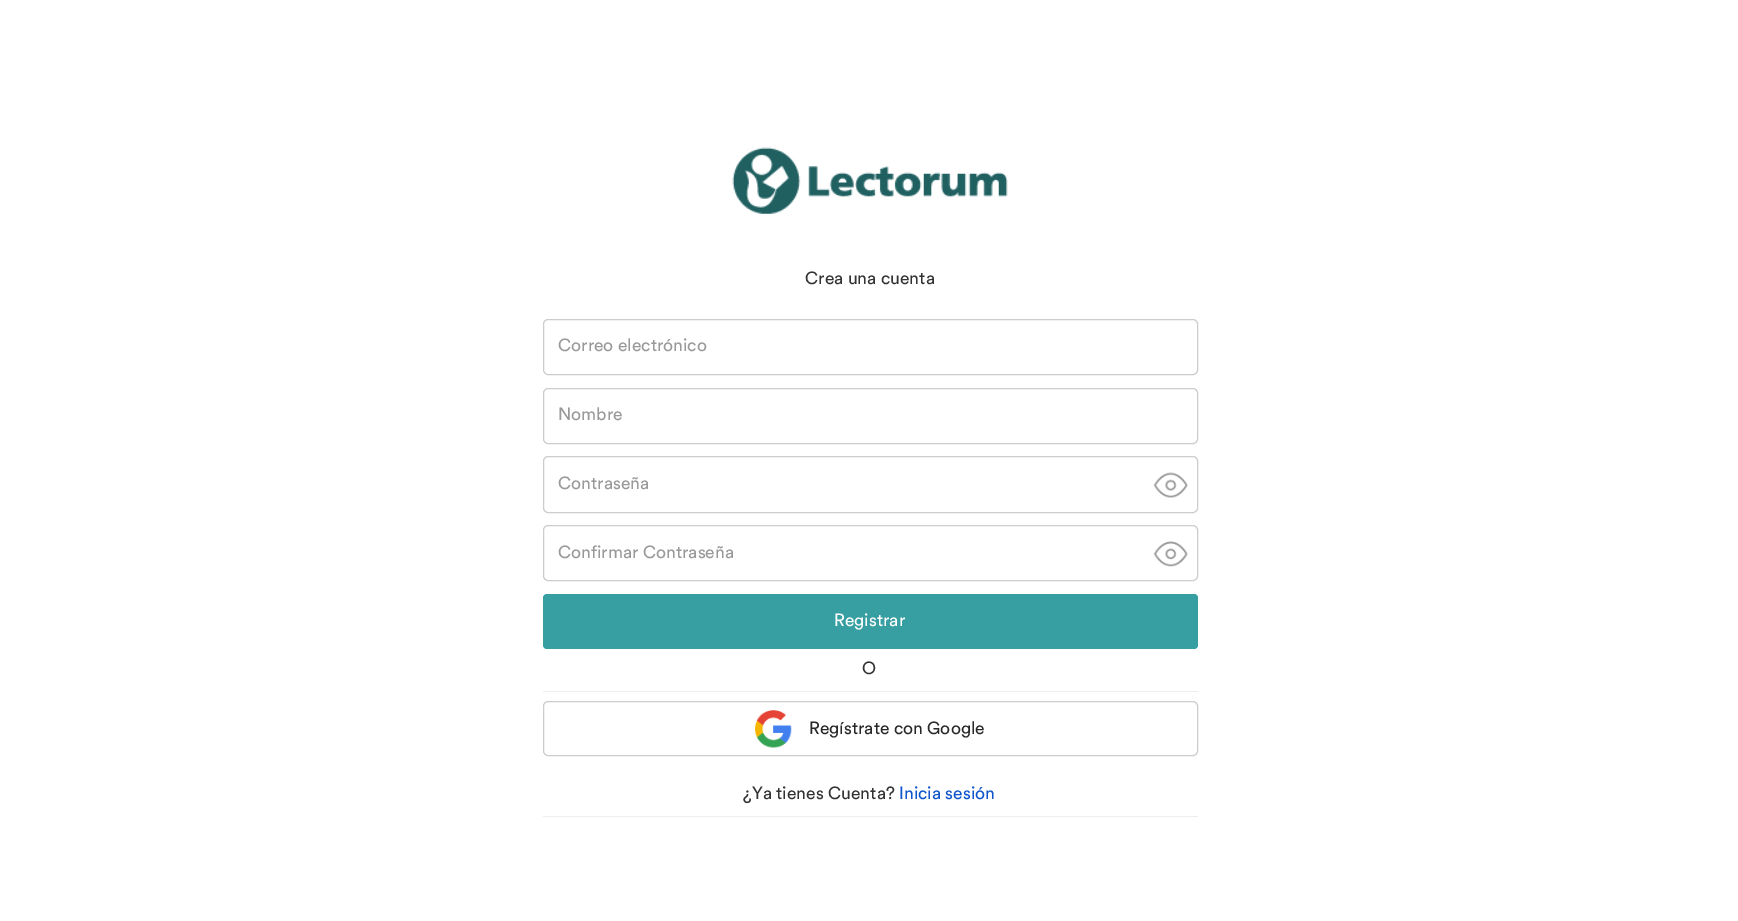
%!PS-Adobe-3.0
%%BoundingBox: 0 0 1738 921
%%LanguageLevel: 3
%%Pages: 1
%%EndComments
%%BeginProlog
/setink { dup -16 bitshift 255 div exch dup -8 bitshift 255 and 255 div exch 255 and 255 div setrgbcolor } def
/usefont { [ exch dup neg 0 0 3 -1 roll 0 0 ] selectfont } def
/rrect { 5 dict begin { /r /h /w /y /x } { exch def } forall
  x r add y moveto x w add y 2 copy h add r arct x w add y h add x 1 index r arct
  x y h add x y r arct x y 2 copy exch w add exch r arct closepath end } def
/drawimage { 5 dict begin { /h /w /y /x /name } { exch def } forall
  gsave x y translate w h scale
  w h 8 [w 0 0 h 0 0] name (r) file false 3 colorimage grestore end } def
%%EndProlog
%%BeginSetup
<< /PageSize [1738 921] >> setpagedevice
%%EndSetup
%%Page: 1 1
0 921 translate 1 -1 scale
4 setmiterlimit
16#FFFFFF setink
0 0 1738 921 rectfill
(img1.raw) 732 147 276 67 drawimage
/Circular-Regular 17.5 usefont
16#333333 setink
805 284 moveto (Crea una cuenta) show
16#CCCCCC setink
543.5 319.5 654 55 4.5 rrect stroke
16#999999 setink
558 351 moveto (Correo electrónico) show
16#CCCCCC setink
543.5 388.5 654 55 4.5 rrect stroke
16#999999 setink
558 420 moveto (Nombre) show
16#CCCCCC setink
543.5 456.5 654 56 4.5 rrect stroke
16#999999 setink
558 489 moveto (Contraseña) show
(img2.raw) 1153 472 35 26 drawimage
16#CCCCCC setink
543.5 525.5 654 55 4.5 rrect stroke
16#999999 setink
558 558 moveto (Confirmar Contraseña) show
(img3.raw) 1153 541 35 26 drawimage
16#379FA2 setink
543 594 655 55 4 rrect fill
16#FFFFFF setink
834 626 moveto (Registrar) show
16#333333 setink
862 674 moveto (O) show
16#EEEEEE setink
543 691 655 1 rectfill
16#CCCCCC setink
543.5 701.5 654 54 4.5 rrect stroke
(img4.raw) 755 710 37 38 drawimage
16#292929 setink
809 734 moveto (Regístrate con Google) show
16#333333 setink
743 799 moveto (¿Ya tienes Cuenta?) show
16#1155CC setink
899 799 moveto (Inicia sesión) show
16#EEEEEE setink
543 816 655 1 rectfill
showpage
%%EOF
